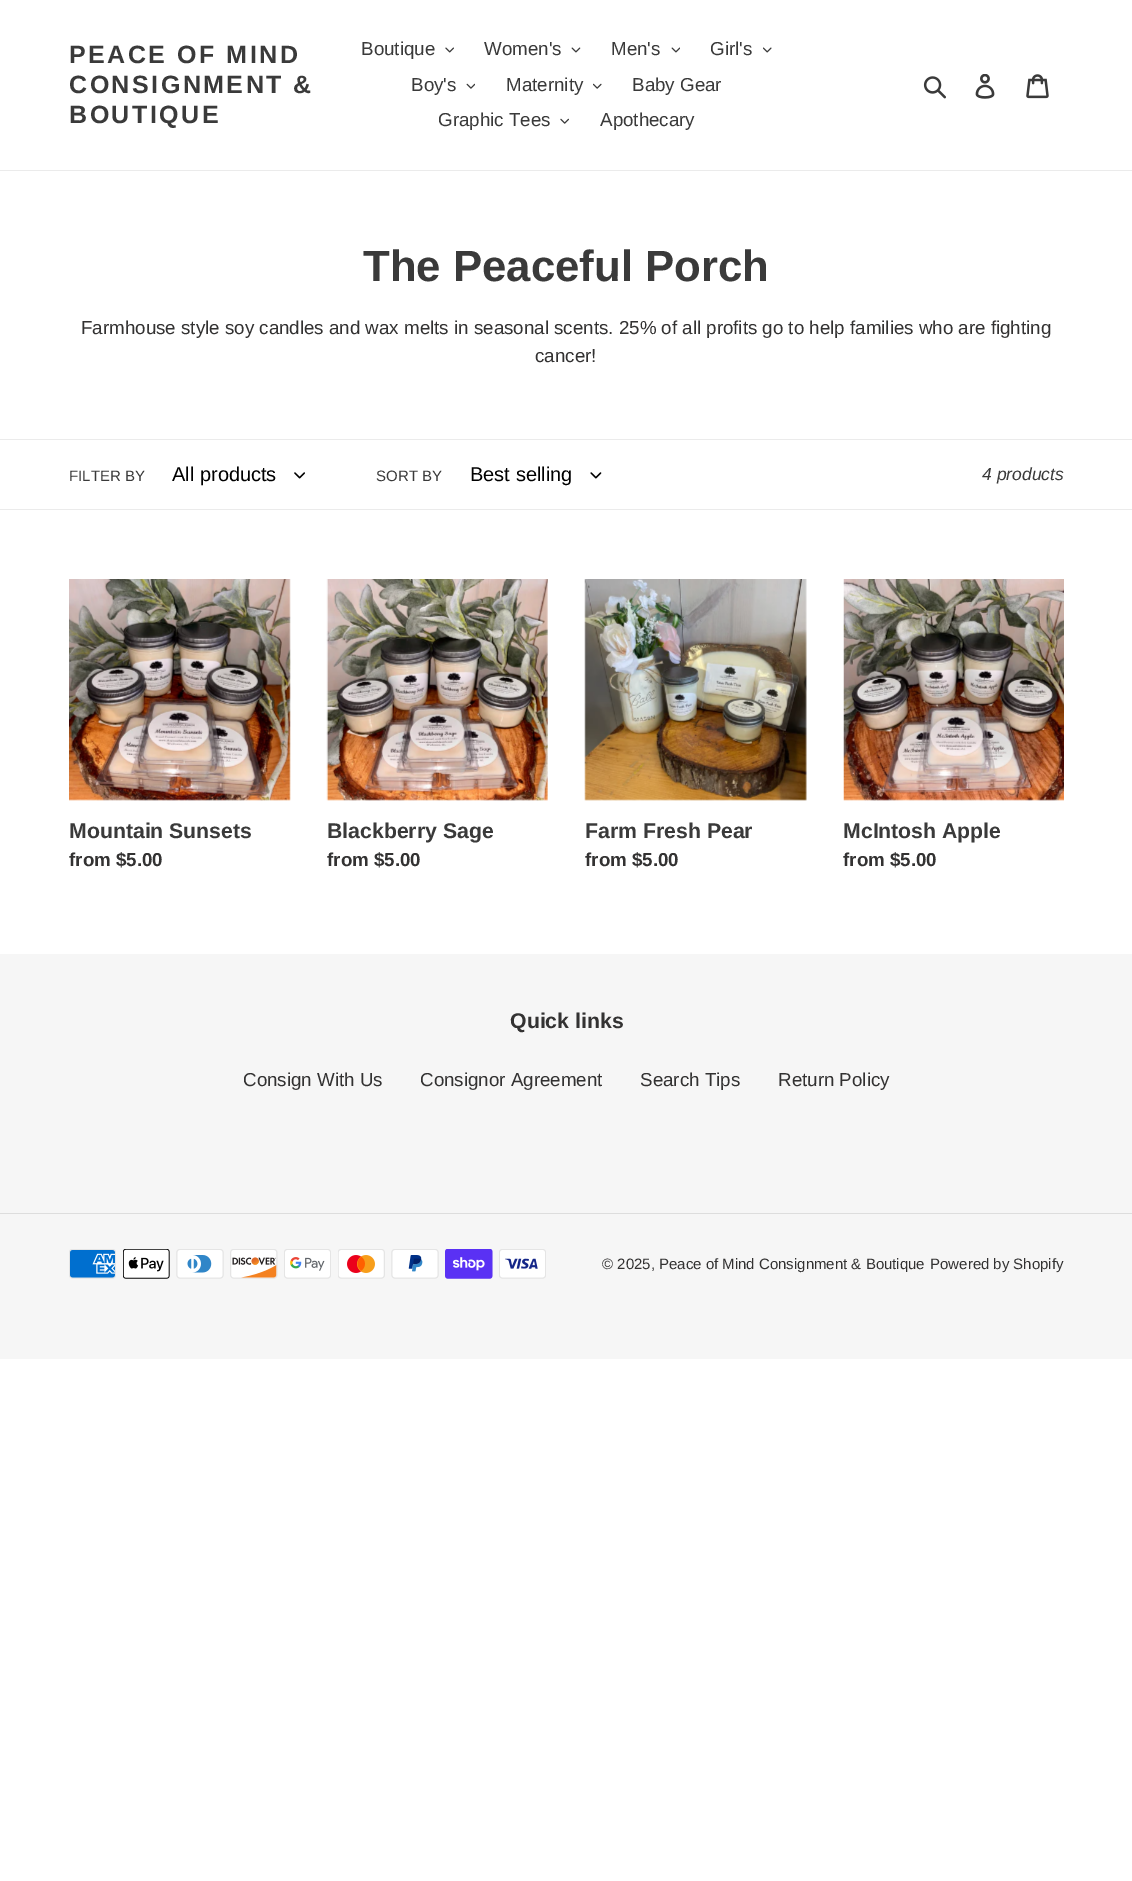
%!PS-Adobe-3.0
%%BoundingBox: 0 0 1132 1881
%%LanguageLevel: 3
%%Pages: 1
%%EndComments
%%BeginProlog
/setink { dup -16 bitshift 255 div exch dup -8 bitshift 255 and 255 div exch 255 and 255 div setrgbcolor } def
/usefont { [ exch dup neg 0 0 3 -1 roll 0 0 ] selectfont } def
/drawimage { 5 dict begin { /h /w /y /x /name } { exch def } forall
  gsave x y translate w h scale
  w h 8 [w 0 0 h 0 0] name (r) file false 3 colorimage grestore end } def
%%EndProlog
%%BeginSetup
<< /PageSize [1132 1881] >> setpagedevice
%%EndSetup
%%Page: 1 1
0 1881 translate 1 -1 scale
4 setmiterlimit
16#FFFFFF setink
0 0 1132 1881 rectfill
16#EBEBEB setink
0 170 1132 1 rectfill
/LiberationSans-Bold 25 usefont
16#3A3A3A setink
69 63 moveto 2.5 0 (PEACE OF MIND) ashow
69 93 moveto 2.5 0 (CONSIGNMENT &) ashow
69 123 moveto 2.5 0 (BOUTIQUE) ashow
/LiberationSans-Regular 18.75 usefont
361 55 moveto (Boutique) show
(img1.raw) 445 47 9 6 drawimage
484 55 moveto (Women's) show
(img2.raw) 571 47 10 6 drawimage
611 55 moveto (Men's) show
(img3.raw) 671 47 9 6 drawimage
710 55 moveto (Girl's) show
(img4.raw) 763 47 9 6 drawimage
411 91 moveto (Boy's) show
(img5.raw) 466 83 9 6 drawimage
506 91 moveto (Maternity) show
(img6.raw) 593 83 9 6 drawimage
632 91 moveto (Baby Gear) show
438 126 moveto (Graphic Tees) show
(img7.raw) 560 118 9 6 drawimage
600 126 moveto (Apothecary) show
(img8.raw) 923 76 23 23 drawimage
(img9.raw) 975 74 20 25 drawimage
(img10.raw) 1026 74 23 25 drawimage
/LiberationSans-Bold 43.75 usefont
363 281 moveto (The Peaceful Porch) show
/LiberationSans-Regular 18.75 usefont
16#333232 setink
81 334 moveto (Farmhouse style soy candles and wax melts in seasonal scents. 25% of all profits go to help families who are fighting) show
535 362 moveto (cancer!) show
16#EBEBEB setink
0 439 1132 1 rectfill
0 509 1132 1 rectfill
/LiberationSans-Regular 15 usefont
16#3A3A3A setink
69 481 moveto (FILTER BY) show
/LiberationSans-Regular 20 usefont
16#000000 setink
172 481 moveto (All products) show
(img11.raw) 294 472 11 7 drawimage
/LiberationSans-Regular 15 usefont
16#3A3A3A setink
376 481 moveto (SORT BY) show
/LiberationSans-Regular 20 usefont
16#000000 setink
470 481 moveto (Best selling) show
(img12.raw) 590 472 12 7 drawimage
/LiberationSans-Italic 17.5 usefont
16#3A3A3A setink
982 480 moveto (4 products) show
(img13.raw) 69 579 222 222 drawimage
/LiberationSans-Bold 21.25 usefont
69 838 moveto (Mountain Sunsets) show
/LiberationSans-Bold 18.75 usefont
16#333232 setink
69 866 moveto (from $5.00) show
(img14.raw) 326 579 222 222 drawimage
/LiberationSans-Bold 21.25 usefont
16#3A3A3A setink
327 838 moveto (Blackberry Sage) show
/LiberationSans-Bold 18.75 usefont
16#333232 setink
327 866 moveto (from $5.00) show
(img15.raw) 584 579 223 222 drawimage
/LiberationSans-Bold 21.25 usefont
16#3A3A3A setink
585 838 moveto (Farm Fresh Pear) show
/LiberationSans-Bold 18.75 usefont
16#333232 setink
585 866 moveto (from $5.00) show
(img16.raw) 843 579 221 222 drawimage
/LiberationSans-Bold 21.25 usefont
16#3A3A3A setink
843 838 moveto (McIntosh Apple) show
/LiberationSans-Bold 18.75 usefont
16#333232 setink
843 866 moveto (from $5.00) show
16#F6F6F6 setink
0 954 1132 405 rectfill
/LiberationSans-Bold 21.25 usefont
16#333232 setink
510 1028 moveto (Quick links) show
/LiberationSans-Regular 18.75 usefont
[
    [(Consign With Us) 243 1086]
    [(Consignor Agreement) 420 1086]
    [(Search Tips) 640 1086]
    [(Return Policy) 778 1086]
] { aload pop moveto show } forall
16#DDDDDD setink
0 1213 1132 1 rectfill
(img17.raw) 69 1249 47 30 drawimage
(img18.raw) 123 1249 47 30 drawimage
(img19.raw) 176 1249 48 30 drawimage
(img20.raw) 230 1249 48 30 drawimage
(img21.raw) 284 1249 47 30 drawimage
(img22.raw) 338 1249 47 30 drawimage
(img23.raw) 391 1249 48 30 drawimage
(img24.raw) 445 1249 48 30 drawimage
(img25.raw) 499 1249 47 30 drawimage
/LiberationSans-Regular 15 usefont
16#333232 setink
602 1269 moveto (© 2025, Peace of Mind Consignment & Boutique) show
930 1269 moveto (Powered by Shopify) show
showpage
%%EOF
